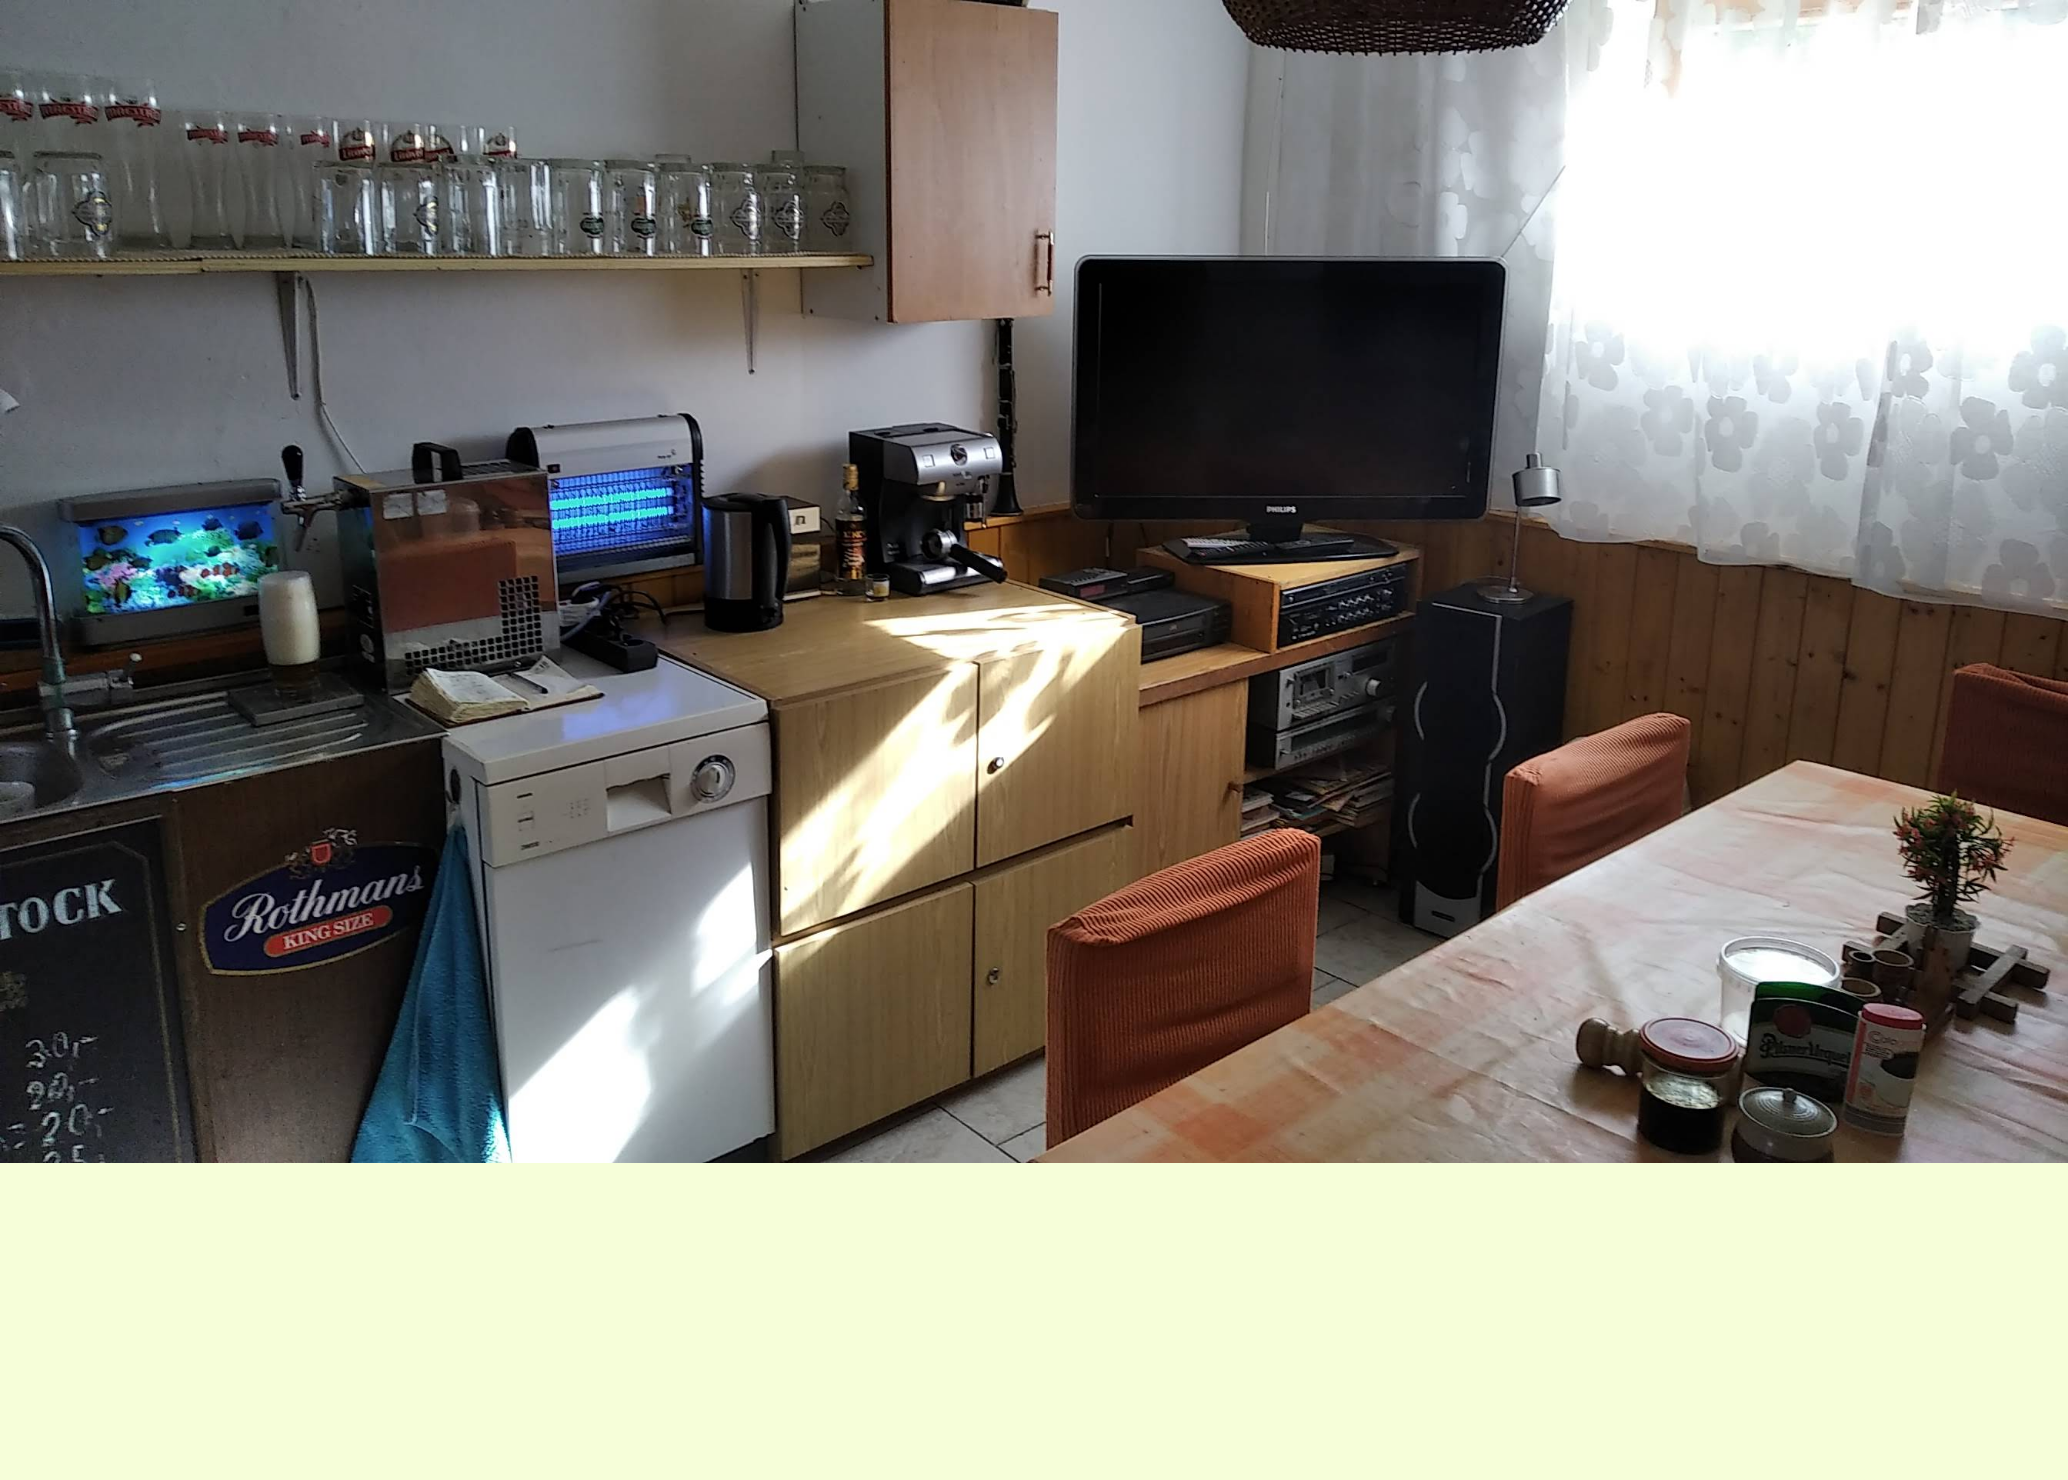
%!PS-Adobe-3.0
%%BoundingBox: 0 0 2068 1480
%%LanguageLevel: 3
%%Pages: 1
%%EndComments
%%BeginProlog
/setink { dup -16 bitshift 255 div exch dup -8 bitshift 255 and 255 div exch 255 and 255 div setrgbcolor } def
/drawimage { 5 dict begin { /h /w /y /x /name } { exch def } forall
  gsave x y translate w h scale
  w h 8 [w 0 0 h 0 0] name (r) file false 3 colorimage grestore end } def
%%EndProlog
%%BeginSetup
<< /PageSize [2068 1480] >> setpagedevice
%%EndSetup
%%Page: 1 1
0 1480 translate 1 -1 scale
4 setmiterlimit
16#F6FED9 setink
0 0 2068 1480 rectfill
(img1.raw) 0 0 2068 1163 drawimage
showpage
%%EOF
